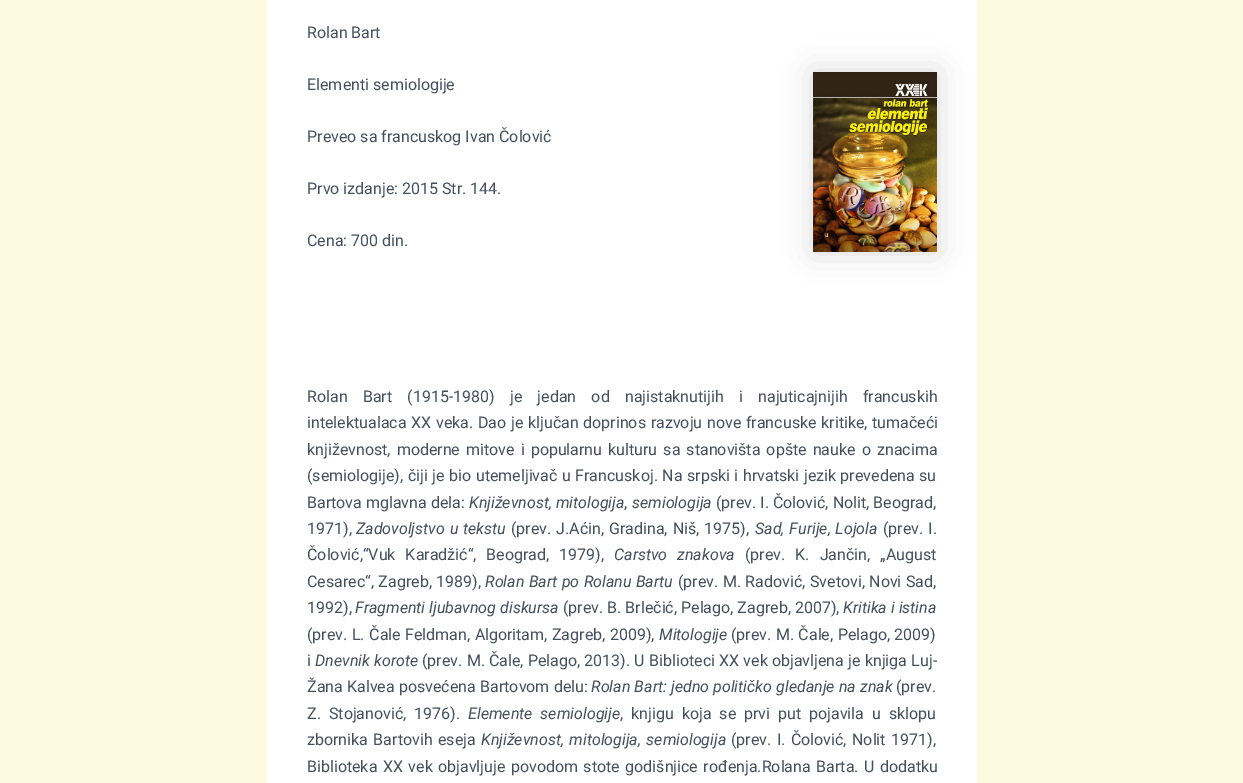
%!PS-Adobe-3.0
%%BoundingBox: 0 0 1243 783
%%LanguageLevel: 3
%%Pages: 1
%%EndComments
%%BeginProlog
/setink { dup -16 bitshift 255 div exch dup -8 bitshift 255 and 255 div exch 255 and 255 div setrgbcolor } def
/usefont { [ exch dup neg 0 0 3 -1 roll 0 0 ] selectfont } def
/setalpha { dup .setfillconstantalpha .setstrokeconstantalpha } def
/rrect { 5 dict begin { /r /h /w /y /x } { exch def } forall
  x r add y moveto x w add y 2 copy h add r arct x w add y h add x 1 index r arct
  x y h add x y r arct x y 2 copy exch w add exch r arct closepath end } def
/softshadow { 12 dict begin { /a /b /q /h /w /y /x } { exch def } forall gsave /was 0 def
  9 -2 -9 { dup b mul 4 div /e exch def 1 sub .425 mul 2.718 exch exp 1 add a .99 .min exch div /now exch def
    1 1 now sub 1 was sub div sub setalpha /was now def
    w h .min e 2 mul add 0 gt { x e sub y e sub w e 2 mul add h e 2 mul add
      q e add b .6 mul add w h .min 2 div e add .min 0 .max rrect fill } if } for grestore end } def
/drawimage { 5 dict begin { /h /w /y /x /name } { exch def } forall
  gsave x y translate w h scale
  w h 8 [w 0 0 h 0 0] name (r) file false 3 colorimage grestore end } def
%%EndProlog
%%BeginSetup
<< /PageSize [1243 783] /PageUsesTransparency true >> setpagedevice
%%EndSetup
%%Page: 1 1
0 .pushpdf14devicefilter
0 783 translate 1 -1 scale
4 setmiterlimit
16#FEF9E1 setink
0 0 1243 783 rectfill
16#FFFFFF setink
267 0 710 783 rectfill
/Roboto-Regular 16 usefont
16#454F5E setink
307 38 moveto (Rolan Bart) show
307 90 moveto (Elementi semiologije) show
16#000000 setink
813 72 124 180 0 15 0.15 softshadow
(img1.raw) 813 72 124 180 drawimage
16#454F5E setink
[
    [(Preveo sa francuskog Ivan Čolović) 307 142]
    [(Prvo izdanje: 2015 Str. 144.) 307 194]
    [(Cena: 700 din.) 307 246]
] { aload pop moveto show } forall
307 402 moveto 11.25 0 32 (Rolan Bart \(1915-1980\) je jedan od najistaknutijih i najuticajnijih francuskih) widthshow
307 428 moveto 0.75 0 32 (intelektualaca XX veka. Dao je ključan doprinos razvoju nove francuske kritike, tumačeći) widthshow
307 455 moveto 2.1 0 32 (književnost, moderne mitove i popularnu kulturu sa stanovišta opšte nauke o znacima) widthshow
307 481 moveto 0.6 0 32 (\(semiologije\), čiji je bio utemeljivač u Francuskoj. Na srpski i hrvatski jezik prevedena su) widthshow
307 508 moveto (Bartova mglavna dela:) show
/Roboto-Italic 16 usefont
469 508 moveto (Književnost, mitologija) show
/Roboto-Regular 16 usefont
624 508 moveto (,) show
/Roboto-Italic 16 usefont
632 508 moveto (semiologija) show
/Roboto-Regular 16 usefont
716 508 moveto (\(prev. I. Čolović, Nolit, Beograd,) show
307 534 moveto (1971\),) show
/Roboto-Italic 16 usefont
356 534 moveto 1 0 32 (Zadovoljstvo u tekstu) widthshow
/Roboto-Regular 16 usefont
511 534 moveto 1 0 32 (\(prev. J.Aćin, Gradina, Niš, 1975\),) widthshow
/Roboto-Italic 16 usefont
755 534 moveto 1 0 32 (Sad, Furije, Lojola) widthshow
/Roboto-Regular 16 usefont
883 534 moveto 1 0 32 (\(prev. I.) widthshow
307 560 moveto 6 0 32 (Čolović,“Vuk Karadžić“, Beograd, 1979\),) widthshow
/Roboto-Italic 16 usefont
614 560 moveto 6 0 32 (Carstvo znakova) widthshow
/Roboto-Regular 16 usefont
745 560 moveto 6 0 32 (\(prev. K. Jančin, „August) widthshow
307 587 moveto 0.5 0 32 (Cesarec“, Zagreb, 1989\),) widthshow
/Roboto-Italic 16 usefont
485 587 moveto 0.5 0 32 (Rolan Bart po Rolanu Bartu) widthshow
/Roboto-Regular 16 usefont
678 587 moveto 0.5 0 32 (\(prev. M. Radović, Svetovi, Novi Sad,) widthshow
307 613 moveto (1992\),) show
/Roboto-Italic 16 usefont
355 613 moveto (Fragmenti ljubavnog diskursa) show
/Roboto-Regular 16 usefont
563 613 moveto (\(prev. B. Brlečić, Pelago, Zagreb, 2007\),) show
/Roboto-Italic 16 usefont
843 613 moveto (Kritika i istina) show
/Roboto-Regular 16 usefont
307 640 moveto 0.5 0 32 (\(prev. L. Čale Feldman, Algoritam, Zagreb, 2009\),) widthshow
/Roboto-Italic 16 usefont
659 640 moveto (Mitologije) show
/Roboto-Regular 16 usefont
731 640 moveto 0.5 0 32 (\(prev. M. Čale, Pelago, 2009\)) widthshow
307 666 moveto (i) show
/Roboto-Italic 16 usefont
315 666 moveto 0.25 0 32 (Dnevnik korote) widthshow
/Roboto-Regular 16 usefont
422 666 moveto 0.25 0 32 (\(prev. M. Čale, Pelago, 2013\). U Biblioteci XX vek objavljena je knjiga Luj-) widthshow
307 692 moveto 0.25 0 32 (Žana Kalvea posvećena Bartovom delu:) widthshow
/Roboto-Italic 16 usefont
591 692 moveto 0.25 0 32 (Rolan Bart: jedno političko gledanje na znak) widthshow
/Roboto-Regular 16 usefont
896 692 moveto (\(prev.) show
307 719 moveto 4 0 32 (Z. Stojanović, 1976\).) widthshow
/Roboto-Italic 16 usefont
468 719 moveto 4 0 32 (Elemente semiologije) widthshow
/Roboto-Regular 16 usefont
620 719 moveto 4 0 32 (, knjigu koja se prvi put pojavila u sklopu) widthshow
307 745 moveto 1.5 0 32 (zbornika Bartovih eseja) widthshow
/Roboto-Italic 16 usefont
481 745 moveto 1.5 0 32 (Književnost, mitologija, semiologija) widthshow
/Roboto-Regular 16 usefont
731 745 moveto 1.5 0 32 (\(prev. I. Čolović, Nolit 1971\),) widthshow
307 772 moveto 1.5 0 32 (Biblioteka XX vek objavljuje povodom stote godišnjice rođenja.Rolana Barta. U dodatku) widthshow
.poppdf14devicefilter showpage
%%EOF
